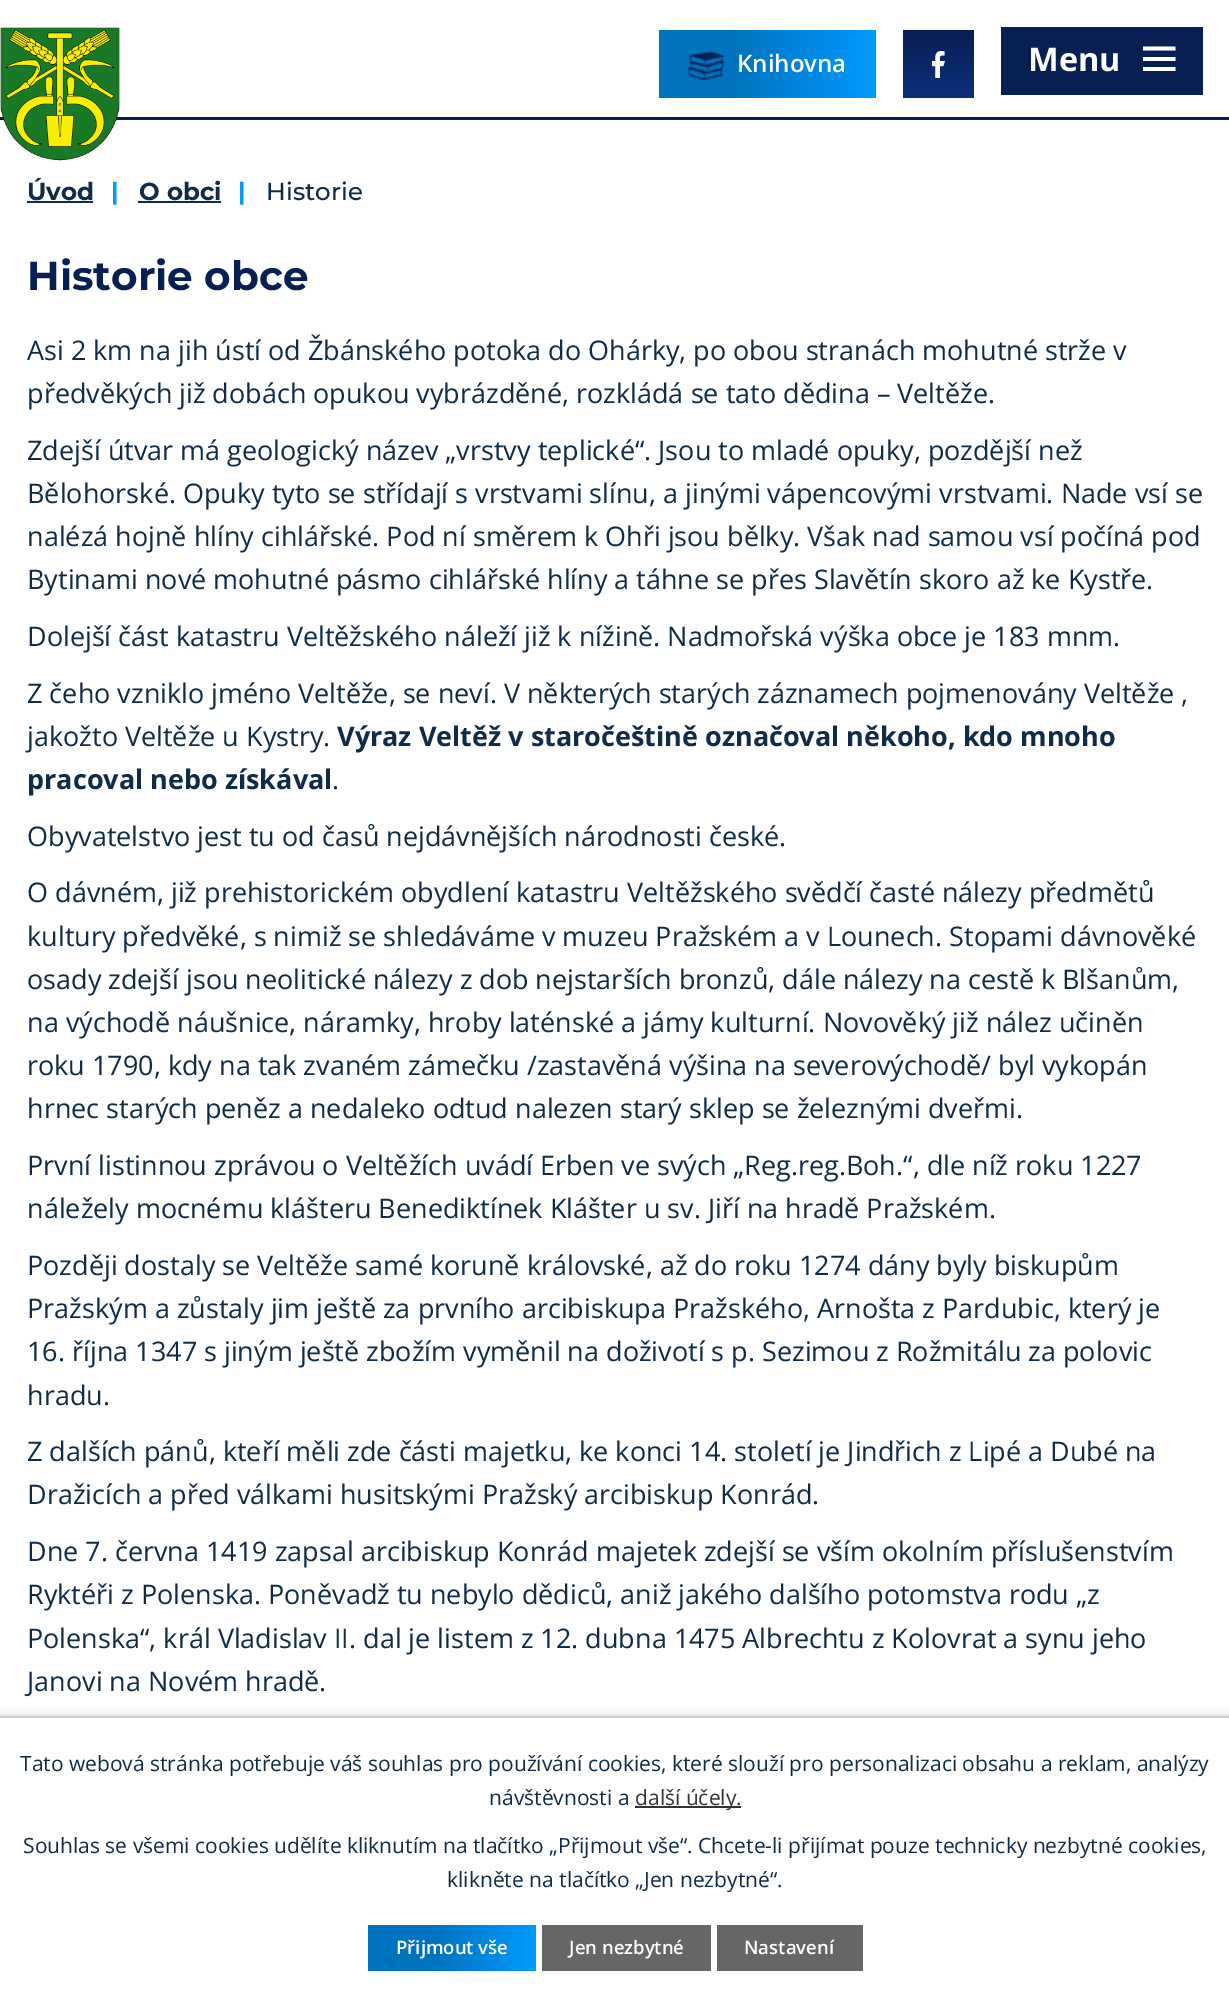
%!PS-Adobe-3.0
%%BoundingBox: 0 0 1229 1999
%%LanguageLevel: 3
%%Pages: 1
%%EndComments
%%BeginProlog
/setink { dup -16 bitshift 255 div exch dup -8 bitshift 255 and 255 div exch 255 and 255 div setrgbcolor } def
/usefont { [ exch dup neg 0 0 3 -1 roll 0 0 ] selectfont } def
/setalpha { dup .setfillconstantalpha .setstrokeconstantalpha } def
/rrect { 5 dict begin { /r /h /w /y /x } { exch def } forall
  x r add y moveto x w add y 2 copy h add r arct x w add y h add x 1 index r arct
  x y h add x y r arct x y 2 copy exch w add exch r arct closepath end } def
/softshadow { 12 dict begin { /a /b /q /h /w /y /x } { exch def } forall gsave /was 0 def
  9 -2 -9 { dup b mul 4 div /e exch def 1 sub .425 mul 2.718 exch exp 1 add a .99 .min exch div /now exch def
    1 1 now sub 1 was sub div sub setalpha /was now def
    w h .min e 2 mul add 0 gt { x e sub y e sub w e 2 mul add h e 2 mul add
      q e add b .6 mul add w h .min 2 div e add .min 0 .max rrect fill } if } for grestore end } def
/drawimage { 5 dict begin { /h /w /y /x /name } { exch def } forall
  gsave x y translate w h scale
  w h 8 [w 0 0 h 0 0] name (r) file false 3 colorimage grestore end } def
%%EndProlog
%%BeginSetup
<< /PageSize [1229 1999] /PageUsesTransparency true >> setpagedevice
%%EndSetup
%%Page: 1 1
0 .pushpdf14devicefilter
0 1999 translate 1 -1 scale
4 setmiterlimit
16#FFFFFF setink
0 0 1229 1999 rectfill
16#081F53 setink
0 117 1229 3 rectfill
(img1.raw) 0 27 120 134 drawimage
gsave 659 30 moveto 876 30 lineto 876 98 lineto 659 98 lineto closepath clip newpath
<< /ShadingType 2 /ColorSpace /DeviceRGB /Coords [659 64 876 64] /Extend [true true] /Function << /FunctionType 3 /Domain [0 1] /Functions [<< /FunctionType 2 /Domain [0 1] /C0 [0 0.451 0.749] /C1 [0 0.451 0.749] /N 1 >> << /FunctionType 2 /Domain [0 1] /C0 [0 0.451 0.749] /C1 [0.008 0.604 1] /N 1 >>] /Bounds [0.35] /Encode [0 1 0 1] >> >> shfill grestore
(img2.raw) 688 51 37 31 drawimage
/OpenSans-SemiBold 24 usefont
16#FFFFFF setink
737 72 moveto (Knihovna) show
gsave 903 30 moveto 974 30 lineto 974 98 lineto 903 98 lineto closepath clip newpath
<< /ShadingType 2 /ColorSpace /DeviceRGB /Coords [938 30 938 98] /Extend [true true] /Function << /FunctionType 2 /Domain [0 1] /C0 [0.031 0.122 0.325] /C1 [0.047 0.184 0.494] /N 1 >> >> shfill grestore
(img3.raw) 932 51 13 27 drawimage
16#081F53 setink
1001 27 202 68 rectfill
/OpenSans-Bold 32.5 usefont
16#FFFFFF setink
1028 71 moveto (Menu) show
1143 71 moveto 1143 67 lineto 1175.5 67 lineto 1175.5 71 lineto closepath 1143 46.5 moveto 1175.5 46.5 lineto 1175.5 50.5 lineto 1143 50.5 lineto closepath 1143 61 moveto 1143 57 lineto 1175.5 57 lineto 1175.5 61 lineto closepath fill
/Montserrat-Bold 24.5 usefont
16#0F2B47 setink
27 200 moveto (Úvod) show
27 201 66 2 rectfill
16#029AFF setink
111 200 moveto (|) show
16#0F2B47 setink
139 200 moveto (O obci) show
138 201 83 2 rectfill
16#029AFF setink
238 200 moveto (|) show
/Montserrat-Medium 24.5 usefont
16#0F2B47 setink
266 200 moveto (Historie) show
/Montserrat-Bold 40.5 usefont
16#081F53 setink
27 290 moveto (Historie obce) show
/OpenSans-Regular 27 usefont
16#0F2B47 setink
[
    [(Asi 2 km na jih ústí od Žbánského potoka do Ohárky, po obou stranách mohutné strže v) 27 360]
    [(předvěkých již dobách opukou vybrázděné, rozkládá se tato dědina – Veltěže.) 27 403]
    [(Zdejší útvar má geologický název „vrstvy teplické“. Jsou to mladé opuky, pozdější než) 27 460]
    [(Bělohorské. Opuky tyto se střídají s vrstvami slínu, a jinými vápencovými vrstvami. Nade vsí se) 27 503]
    [(nalézá hojně hlíny cihlářské. Pod ní směrem k Ohři jsou bělky. Však nad samou vsí počíná pod) 27 546]
    [(Bytinami nové mohutné pásmo cihlářské hlíny a táhne se přes Slavětín skoro až ke Kystře.) 27 589]
    [(Dolejší část katastru Veltěžského náleží již k nížině. Nadmořská výška obce je 183 mnm.) 27 646]
    [(Z čeho vzniklo jméno Veltěže, se neví. V některých starých záznamech pojmenovány Veltěže ,) 27 703]
    [(jakožto Veltěže u Kystry.) 27 746]
] { aload pop moveto show } forall
/OpenSans-Bold 27 usefont
337 746 moveto (Výraz Veltěž v staročeštině označoval někoho, kdo mnoho) show
27 789 moveto (pracoval nebo získával) show
/OpenSans-Regular 27 usefont
[
    [(.) 332 789]
    [(Obyvatelstvo jest tu od časů nejdávnějších národnosti české.) 27 846]
    [(O dávném, již prehistorickém obydlení katastru Veltěžského svědčí časté nálezy předmětů) 27 902]
    [(kultury předvěké, s nimiž se shledáváme v muzeu Pražském a v Lounech. Stopami dávnověké) 27 946]
    [(osady zdejší jsou neolitické nálezy z dob nejstarších bronzů, dále nálezy na cestě k Blšanům,) 27 989]
    [(na východě náušnice, náramky, hroby laténské a jámy kulturní. Novověký již nález učiněn) 27 1032]
    [(roku 1790, kdy na tak zvaném zámečku /zastavěná výšina na severovýchodě/ byl vykopán) 27 1075]
    [(hrnec starých peněz a nedaleko odtud nalezen starý sklep se železnými dveřmi.) 27 1118]
    [(První listinnou zprávou o Veltěžích uvádí Erben ve svých „Reg.reg.Boh.“, dle níž roku 1227) 27 1175]
    [(náležely mocnému klášteru Benediktínek Klášter u sv. Jiří na hradě Pražském.) 27 1218]
    [(Později dostaly se Veltěže samé koruně královské, až do roku 1274 dány byly biskupům) 27 1275]
    [(Pražským a zůstaly jim ještě za prvního arcibiskupa Pražského, Arnošta z Pardubic, který je) 27 1318]
    [(16. října 1347 s jiným ještě zbožím vyměnil na doživotí s p. Sezimou z Rožmitálu za polovic) 27 1361]
    [(hradu.) 27 1405]
    [(Z dalších pánů, kteří měli zde části majetku, ke konci 14. století je Jindřich z Lipé a Dubé na) 27 1461]
    [(Dražicích a před válkami husitskými Pražský arcibiskup Konrád.) 27 1504]
    [(Dne 7. června 1419 zapsal arcibiskup Konrád majetek zdejší se vším okolním příslušenstvím) 27 1561]
    [(Ryktéři z Polenska. Poněvadž tu nebylo dědiců, aniž jakého dalšího potomstva rodu „z) 27 1604]
    [(Polenska“, král Vladislav II. dal je listem z 12. dubna 1475 Albrechtu z Kolovrat a synu jeho) 27 1648]
    [(Janovi na Novém hradě.) 27 1691]
] { aload pop moveto show } forall
16#000000 setink
0 1716 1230 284 0 4 0.2 softshadow
16#FFFFFF setink
0 1718 1229 281 rectfill
16#CCCCCC setink
0 1716 1229 2 rectfill
/OpenSans-Regular 21 usefont
16#0F2B47 setink
20 1771 moveto (Tato webová stránka potřebuje váš souhlas pro používání cookies, které slouží pro personalizaci obsahu a reklam, analýzy) show
489 1805 moveto (návštěvnosti a) show
16#333333 setink
635 1806 106 2 rectfill
635 1805 moveto (další účely.) show
16#0F2B47 setink
23 1853 moveto (Souhlas se všemi cookies udělíte kliknutím na tlačítko „Přijmout vše“. Chcete-li přijímat pouze technicky nezbytné cookies,) show
447 1887 moveto (klikněte na tlačítko „Jen nezbytné“.) show
gsave 368 1925 moveto 536 1925 lineto 536 1971 lineto 368 1971 lineto closepath clip newpath
<< /ShadingType 2 /ColorSpace /DeviceRGB /Coords [368 1948 536 1948] /Extend [true true] /Function << /FunctionType 3 /Domain [0 1] /Functions [<< /FunctionType 2 /Domain [0 1] /C0 [0 0.451 0.749] /C1 [0 0.451 0.749] /N 1 >> << /FunctionType 2 /Domain [0 1] /C0 [0 0.451 0.749] /C1 [0.008 0.604 1] /N 1 >>] /Bounds [0.4] /Encode [0 1 0 1] >> >> shfill grestore
/OpenSans-SemiBold 18.5 usefont
16#FFFFFF setink
396 1954 moveto (Přijmout vše) show
16#666666 setink
542 1925 169 46 rectfill
16#FFFFFF setink
569 1954 moveto (Jen nezbytné) show
16#666666 setink
717 1925 146 46 rectfill
16#FFFFFF setink
744 1954 moveto (Nastavení) show
.poppdf14devicefilter showpage
%%EOF
